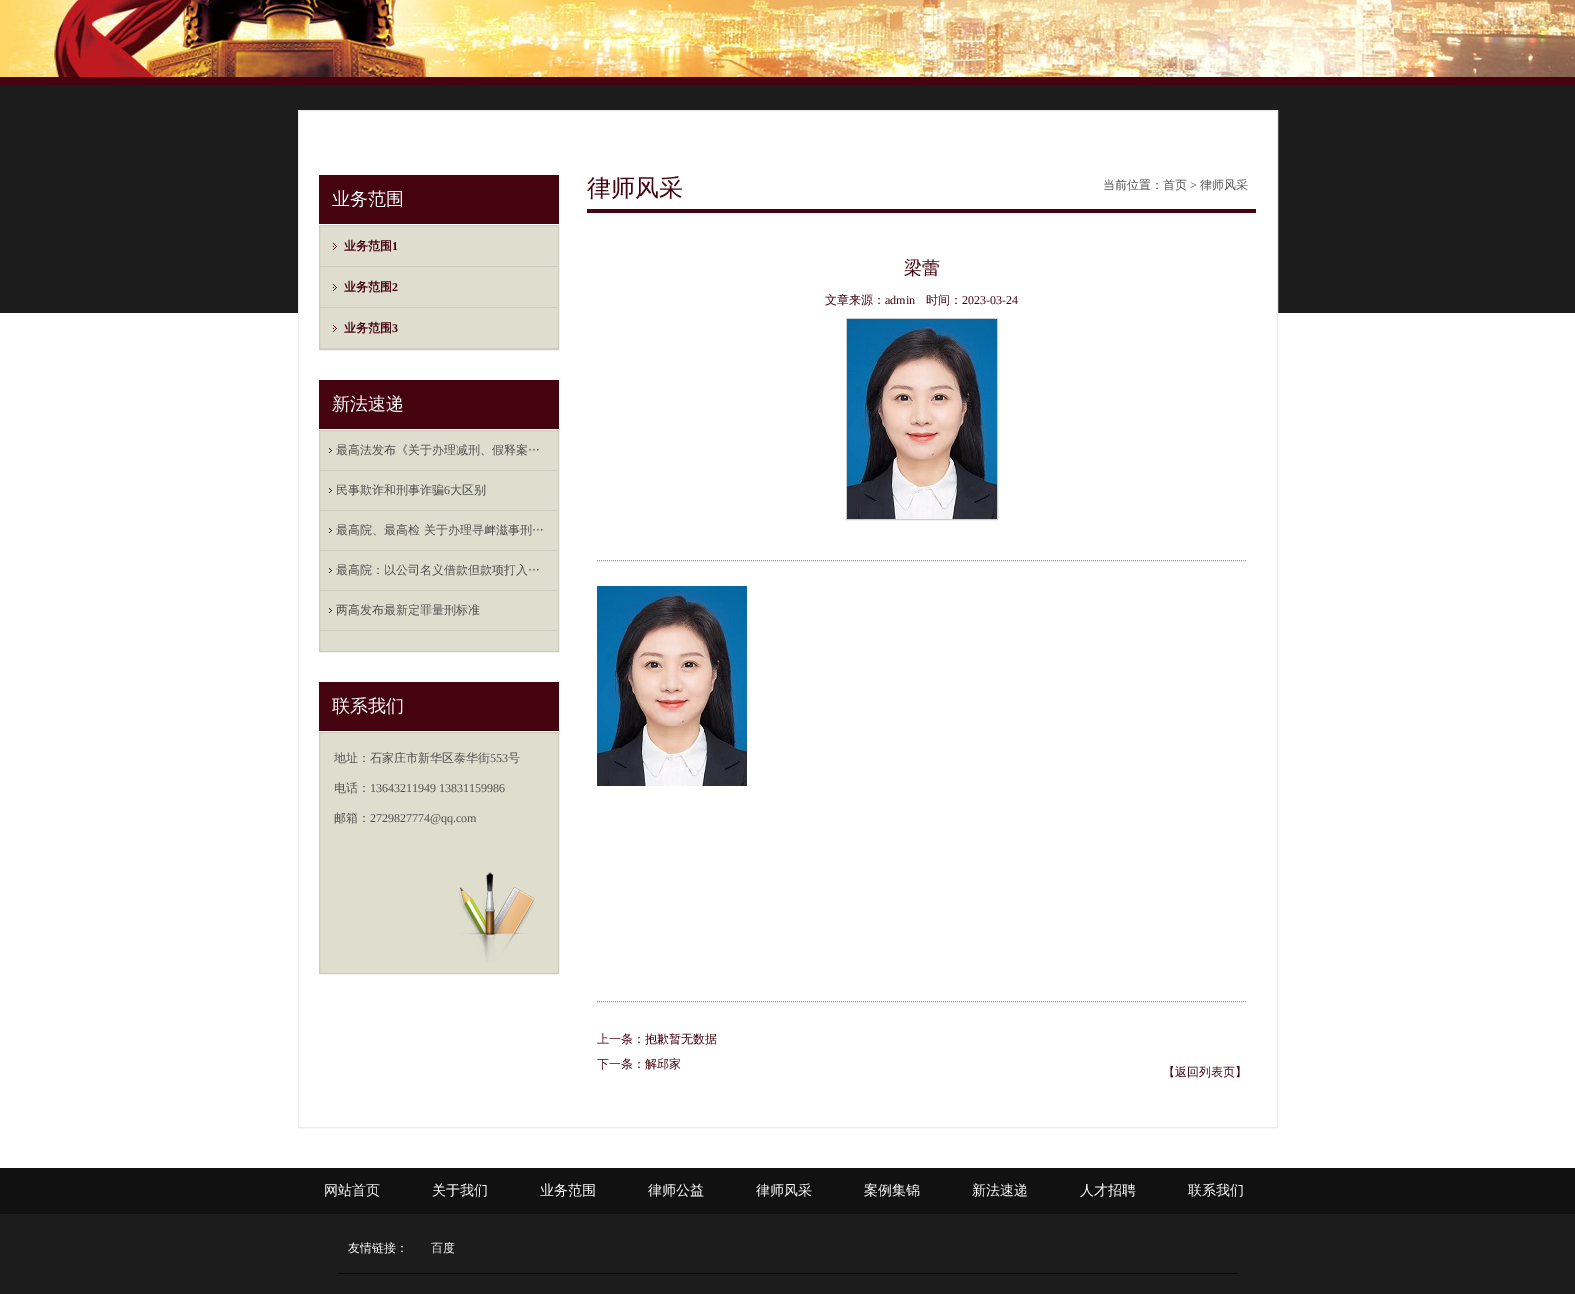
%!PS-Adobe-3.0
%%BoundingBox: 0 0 1575 1294
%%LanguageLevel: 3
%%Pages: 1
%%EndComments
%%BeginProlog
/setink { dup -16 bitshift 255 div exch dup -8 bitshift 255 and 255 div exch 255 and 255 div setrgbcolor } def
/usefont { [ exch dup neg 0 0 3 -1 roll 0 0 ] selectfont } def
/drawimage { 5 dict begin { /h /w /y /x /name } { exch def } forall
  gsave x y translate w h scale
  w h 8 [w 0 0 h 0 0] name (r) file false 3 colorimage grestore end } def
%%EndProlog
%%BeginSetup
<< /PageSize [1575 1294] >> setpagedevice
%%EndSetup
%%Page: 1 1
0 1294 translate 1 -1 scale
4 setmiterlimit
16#FFFFFF setink
0 0 1575 1294 rectfill
16#45030F setink
0 77 1575 8 rectfill
(img1.raw) 0 0 1575 77 drawimage
16#1C1C1C setink
0 85 1575 228 rectfill
16#FFFFFF setink
299 111 978 202 rectfill
16#ECECEC setink
298.5 110.5 979 1017 rectstroke
16#45030F setink
319 175 240 49 rectfill
/WenQuanYiZenHei-Medium 18 usefont
16#FFFFFF setink
332 205 moveto (业务范围) show
16#DFDDCE setink
320 226 238 122 rectfill
16#CECCBE setink
319.5 225.5 239 124 rectstroke
(img2.raw) 333 243 4 7 drawimage
320 266 238 1 rectfill
/WenQuanYiZenHei-Bold 12 usefont
16#45030F setink
344 250 moveto (业务范围) show
/LiberationSerif-Bold 12 usefont
392 250 moveto (1) show
(img2.raw) 333 284 4 7 drawimage
16#CECCBE setink
320 307 238 1 rectfill
/WenQuanYiZenHei-Bold 12 usefont
16#45030F setink
344 291 moveto (业务范围) show
/LiberationSerif-Bold 12 usefont
392 291 moveto (2) show
(img2.raw) 333 325 4 7 drawimage
16#CECCBE setink
320 348 238 1 rectfill
/WenQuanYiZenHei-Bold 12 usefont
16#45030F setink
344 332 moveto (业务范围) show
/LiberationSerif-Bold 12 usefont
392 332 moveto (3) show
319 380 240 49 rectfill
/WenQuanYiZenHei-Medium 18 usefont
16#FFFFFF setink
332 410 moveto (新法速递) show
16#DFDDCE setink
319.5 430.5 moveto 558.5 430.5 lineto 558.5 651.5 lineto 319.5 651.5 lineto closepath gsave fill grestore
16#CECCBE setink
stroke
320 470 238 1 rectfill
(img3.raw) 329 448 3 5 drawimage
/WenQuanYiZenHei-Medium 12 usefont
16#515151 setink
336 454 moveto (最高法发布《关于办理减刑、假释案…) show
16#CECCBE setink
320 510 238 1 rectfill
(img3.raw) 329 488 3 5 drawimage
16#515151 setink
336 494 moveto (民事欺诈和刑事诈骗) show
/LiberationSerif-Regular 12 usefont
444 494 moveto (6) show
/WenQuanYiZenHei-Medium 12 usefont
450 494 moveto (大区别) show
16#CECCBE setink
320 550 238 1 rectfill
(img3.raw) 329 528 3 5 drawimage
16#515151 setink
336 534 moveto (最高院、最高检 关于办理寻衅滋事刑…) show
16#CECCBE setink
320 590 238 1 rectfill
(img3.raw) 329 568 3 5 drawimage
16#515151 setink
336 574 moveto (最高院：以公司名义借款但款项打入…) show
16#CECCBE setink
320 630 238 1 rectfill
(img3.raw) 329 608 3 5 drawimage
16#515151 setink
336 614 moveto (两高发布最新定罪量刑标准) show
16#45030F setink
319 682 240 49 rectfill
/WenQuanYiZenHei-Medium 18 usefont
16#FFFFFF setink
332 712 moveto (联系我们) show
16#DFDDCE setink
320 733 238 240 rectfill
(img4.raw) 458 870 82 92 drawimage
16#CECCBE setink
319.5 732.5 239 241 rectstroke
/WenQuanYiZenHei-Medium 12 usefont
16#515151 setink
334 762 moveto (地址：石家庄市新华区泰华街) show
/LiberationSerif-Regular 12 usefont
490 762 moveto (553) show
/WenQuanYiZenHei-Medium 12 usefont
508 762 moveto (号) show
334 792 moveto (电话：) show
/LiberationSerif-Regular 12 usefont
370 792 moveto (13643211949 13831159986) show
/WenQuanYiZenHei-Medium 12 usefont
334 822 moveto (邮箱：) show
/LiberationSerif-Regular 12 usefont
370 822 moveto (2729827774@qq.com) show
16#45030F setink
587 209 669 4 rectfill
/WenQuanYiZenHei-Medium 24 usefont
587 196 moveto (律师风采) show
/WenQuanYiZenHei-Medium 12 usefont
16#515151 setink
1103 189 moveto (当前位置：首页) show
/LiberationSerif-Regular 12 usefont
1190 189 moveto (>) show
/WenQuanYiZenHei-Medium 12 usefont
1200 189 moveto (律师风采) show
/WenQuanYiZenHei-Medium 18 usefont
16#45030F setink
904 274 moveto (梁蕾) show
/WenQuanYiZenHei-Medium 12 usefont
825 304 moveto (文章来源：) show
/LiberationSerif-Regular 12 usefont
885 304 moveto (admin) show
/WenQuanYiZenHei-Medium 12 usefont
926 304 moveto (时间：) show
/LiberationSerif-Regular 12 usefont
962 304 moveto (2023-03-24) show
16#CCCCCC setink
846.5 318.5 151 201 rectstroke
(img5.raw) 847 319 150 200 drawimage
16#A08E90 setink
[1 1] 0 setdash
597 560.5 moveto 1247 560.5 lineto stroke
597 1001.5 moveto 1247 1001.5 lineto stroke
(img5.raw) 597 586 150 200 drawimage
/WenQuanYiZenHei-Medium 12 usefont
16#45030F setink
[
    [(上一条：抱歉暂无数据) 597 1043]
    [(下一条：解邱家) 597 1068]
    [(【返回列表页】) 1163 1076]
] { aload pop moveto show } forall
16#111111 setink
0 1168 1575 46 rectfill
/WenQuanYiZenHei-Medium 14 usefont
16#FFFFFF setink
[
    [(网站首页) 324 1195]
    [(关于我们) 432 1195]
    [(业务范围) 540 1195]
    [(律师公益) 648 1195]
    [(律师风采) 756 1195]
    [(案例集锦) 864 1195]
    [(新法速递) 972 1195]
    [(人才招聘) 1080 1195]
    [(联系我们) 1188 1195]
] { aload pop moveto show } forall
16#1C1C1C setink
0 1214 1575 80 rectfill
/WenQuanYiZenHei-Medium 12 usefont
16#FFFFFF setink
348 1252 moveto (友情链接：) show
431 1252 moveto (百度) show
16#080808 setink
338 1273 900 1 rectfill
showpage
%%EOF
